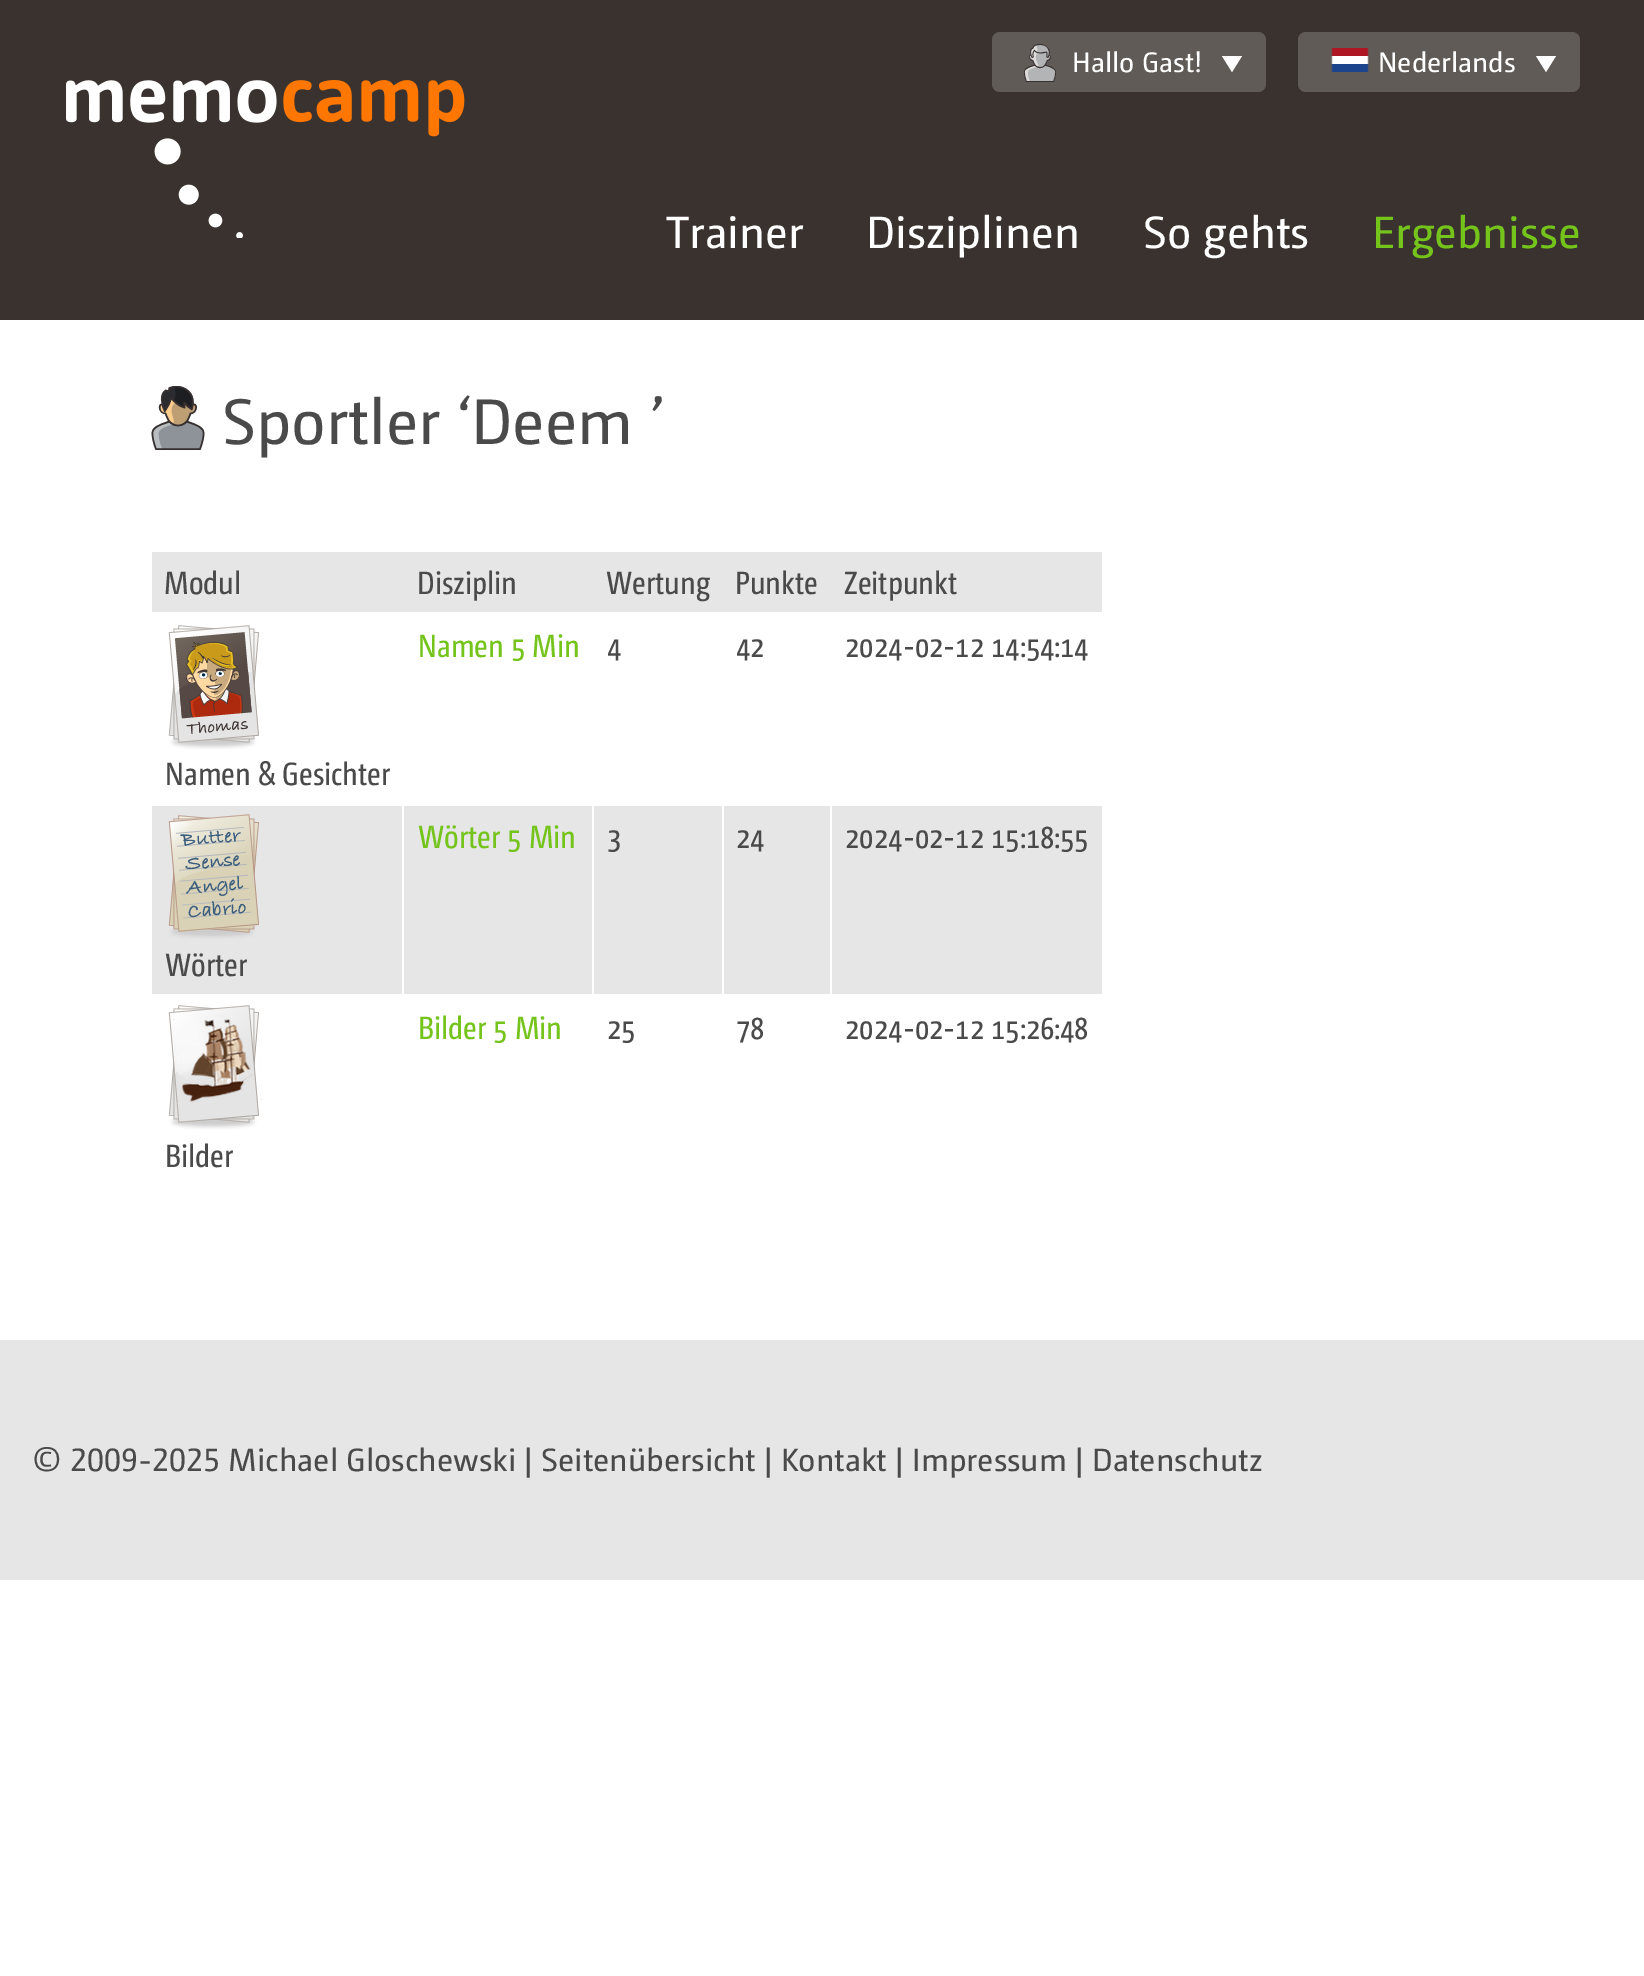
%!PS-Adobe-3.0
%%BoundingBox: 0 0 1644 1976
%%LanguageLevel: 3
%%Pages: 1
%%EndComments
%%BeginProlog
/setink { dup -16 bitshift 255 div exch dup -8 bitshift 255 and 255 div exch 255 and 255 div setrgbcolor } def
/usefont { [ exch dup neg 0 0 3 -1 roll 0 0 ] selectfont } def
/rrect { 5 dict begin { /r /h /w /y /x } { exch def } forall
  x r add y moveto x w add y 2 copy h add r arct x w add y h add x 1 index r arct
  x y h add x y r arct x y 2 copy exch w add exch r arct closepath end } def
/drawimage { 5 dict begin { /h /w /y /x /name } { exch def } forall
  gsave x y translate w h scale
  w h 8 [w 0 0 h 0 0] name (r) file false 3 colorimage grestore end } def
%%EndProlog
%%BeginSetup
<< /PageSize [1644 1976] >> setpagedevice
%%EndSetup
%%Page: 1 1
0 1976 translate 1 -1 scale
4 setmiterlimit
16#FFFFFF setink
0 0 1644 1976 rectfill
16#3A322F setink
0 0 1644 320 rectfill
(img1.raw) 66 80 399 158 drawimage
16#615B58 setink
992 32 274 60 8 rrect fill
(img2.raw) 1024 44 32 38 drawimage
/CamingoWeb-Regular 28 usefont
16#FFFFFF setink
1072 72 moveto (Hallo Gast!) show
1222 56 moveto 1242 56 lineto 1232 72 lineto closepath fill
16#615B58 setink
1298 32 282 60 8 rrect fill
(img3.raw) 1331 48 38 24 drawimage
16#FFFFFF setink
1378 72 moveto (Nederlands) show
1536 56 moveto 1556 56 lineto 1546 72 lineto closepath fill
/CamingoWeb-Regular 45 usefont
[
    [(Trainer) 666 248]
    [(Disziplinen) 866 248]
    [(So gehts) 1143 248]
] { aload pop moveto show } forall
16#74C41C setink
1372 248 moveto (Ergebnisse) show
(img4.raw) 151 386 54 64 drawimage
/CamingoWeb-Regular 64 usefont
16#4A4A4A setink
222 444 moveto (Sportler ‘Deem ’) show
16#E6E6E6 setink
152 552 950 60 rectfill
/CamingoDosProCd-Regular 32 usefont
16#4A4A4A setink
[
    [(Modul) 164 594]
    [(Disziplin) 417 594]
    [(Wertung) 606 594]
    [(Punkte) 735 594]
    [(Zeitpunkt) 844 594]
] { aload pop moveto show } forall
16#74C41C setink
418 657 moveto (Namen 5 Min) show
16#4A4A4A setink
[
    [(4) 607 657]
    [(42) 736 657]
    [(2024-02-12 14:54:14) 845 657]
] { aload pop moveto show } forall
(img5.raw) 168 625 92 125 drawimage
165 785 moveto (Namen & Gesichter) show
16#E6E6E6 setink
152 806 950 188 rectfill
16#FFFFFF setink
402 804 2 192 rectfill
16#74C41C setink
418 848 moveto (Wörter 5 Min) show
16#FFFFFF setink
592 804 2 192 rectfill
16#4A4A4A setink
607 848 moveto (3) show
16#FFFFFF setink
722 804 2 192 rectfill
16#4A4A4A setink
736 848 moveto (24) show
16#FFFFFF setink
830 804 2 192 rectfill
16#4A4A4A setink
845 848 moveto (2024-02-12 15:18:55) show
(img6.raw) 168 814 92 125 drawimage
165 976 moveto (Wörter) show
16#74C41C setink
418 1039 moveto (Bilder 5 Min) show
16#4A4A4A setink
[
    [(25) 607 1039]
    [(78) 736 1039]
    [(2024-02-12 15:26:48) 845 1039]
] { aload pop moveto show } forall
(img7.raw) 168 1005 94 125 drawimage
165 1167 moveto (Bilder) show
16#E6E6E6 setink
0 1340 1644 240 rectfill
/CamingoWeb-Regular 32 usefont
16#4A4A4A setink
32 1471 moveto (© 2009-2025 Michael Gloschewski | Seitenübersicht | Kontakt | Impressum | Datenschutz) show
showpage
%%EOF
